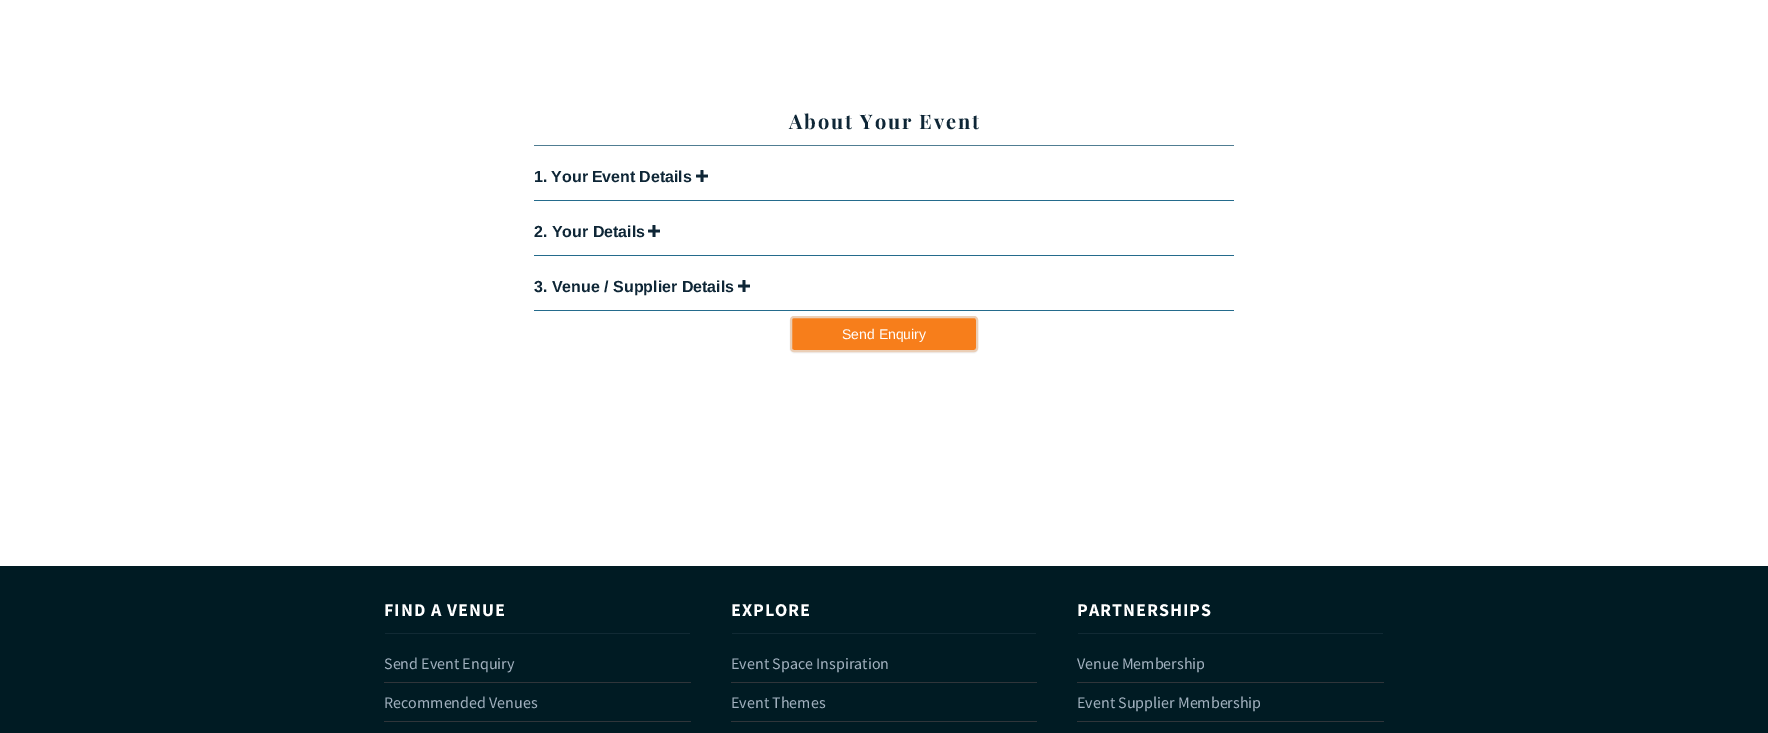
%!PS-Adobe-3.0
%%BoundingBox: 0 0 1768 733
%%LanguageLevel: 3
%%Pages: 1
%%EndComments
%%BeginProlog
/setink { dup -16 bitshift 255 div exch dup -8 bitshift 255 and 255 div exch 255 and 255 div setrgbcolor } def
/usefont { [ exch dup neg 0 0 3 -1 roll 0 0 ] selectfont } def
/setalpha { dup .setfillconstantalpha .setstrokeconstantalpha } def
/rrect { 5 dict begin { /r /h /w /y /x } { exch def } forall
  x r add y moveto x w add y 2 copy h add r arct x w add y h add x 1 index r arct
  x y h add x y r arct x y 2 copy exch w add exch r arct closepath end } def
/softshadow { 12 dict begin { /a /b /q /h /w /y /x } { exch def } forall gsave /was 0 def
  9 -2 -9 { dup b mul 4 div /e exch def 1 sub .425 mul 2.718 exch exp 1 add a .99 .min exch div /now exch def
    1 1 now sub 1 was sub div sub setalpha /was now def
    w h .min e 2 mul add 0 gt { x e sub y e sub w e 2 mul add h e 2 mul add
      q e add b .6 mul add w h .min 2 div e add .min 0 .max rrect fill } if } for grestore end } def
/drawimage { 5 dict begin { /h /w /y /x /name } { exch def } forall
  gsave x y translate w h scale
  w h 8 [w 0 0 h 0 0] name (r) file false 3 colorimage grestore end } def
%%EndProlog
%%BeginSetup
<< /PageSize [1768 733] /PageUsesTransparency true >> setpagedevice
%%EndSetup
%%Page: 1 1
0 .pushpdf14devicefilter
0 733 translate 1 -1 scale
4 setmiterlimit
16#FFFFFF setink
0 0 1768 733 rectfill
16#507D92 setink
534 145 700 1 rectfill
/PlayfairDisplay-Bold 20 usefont
16#0E2636 setink
789 129 moveto -1 0 32 2 0 (About Your Event) awidthshow
16#246B8C setink
534 200 700 1 rectfill
/LiberationSans-Bold 16 usefont
16#0E2636 setink
534 182 moveto -0.5 0 32 (1. Your Event Details) widthshow
(img1.raw) 696 170 12 12 drawimage
16#246B8C setink
534 255 700 1 rectfill
16#0E2636 setink
534 237 moveto (2. Your Details) show
(img1.raw) 648 225 12 12 drawimage
16#246B8C setink
534 310 700 1 rectfill
16#0E2636 setink
534 292 moveto (3. Venue / Supplier Details) show
(img1.raw) 738 280 12 12 drawimage
16#EEEEEE setink
790 317 188 36 4 0.5 1 softshadow
16#F77E1B setink
791 317 186 34 3 rrect gsave fill grestore
16#EBCFB7 setink
2 setlinewidth
stroke
/LiberationSans-Regular 14 usefont
16#FFFFFF setink
842 339 moveto (Send Enquiry) show
16#001B23 setink
0 566 1768 167 rectfill
/SourceSansPro-Bold 18 usefont
16#FFFFFF setink
384 616 moveto 1 0 (FIND A VENUE) ashow
16#112A34 setink
385 633 305 1 rectfill
16#2F353A setink
384 682 307 1 rectfill
/SourceSansPro-Regular 16 usefont
16#A2B1BF setink
384 669 moveto (Send Event Enquiry) show
16#2F353A setink
384 721 307 1 rectfill
16#A2B1BF setink
384 708 moveto (Recommended Venues) show
/SourceSansPro-Bold 18 usefont
16#FFFFFF setink
731 616 moveto 1 0 (EXPLORE) ashow
16#112A34 setink
732 633 304 1 rectfill
16#2F353A setink
731 682 306 1 rectfill
/SourceSansPro-Regular 16 usefont
16#A2B1BF setink
731 669 moveto (Event Space Inspiration) show
16#2F353A setink
731 721 306 1 rectfill
16#A2B1BF setink
731 708 moveto (Event Themes) show
/SourceSansPro-Bold 18 usefont
16#FFFFFF setink
1077 616 moveto 1 0 (PARTNERSHIPS) ashow
16#112A34 setink
1078 633 305 1 rectfill
16#2F353A setink
1077 682 307 1 rectfill
/SourceSansPro-Regular 16 usefont
16#A2B1BF setink
1077 669 moveto (Venue Membership) show
16#2F353A setink
1077 721 307 1 rectfill
16#A2B1BF setink
1077 708 moveto (Event Supplier Membership) show
.poppdf14devicefilter showpage
%%EOF
